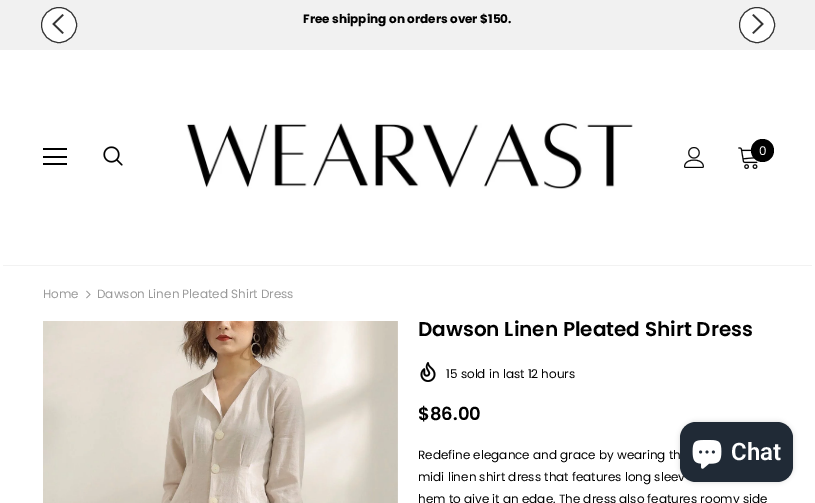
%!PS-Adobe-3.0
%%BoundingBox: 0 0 815 503
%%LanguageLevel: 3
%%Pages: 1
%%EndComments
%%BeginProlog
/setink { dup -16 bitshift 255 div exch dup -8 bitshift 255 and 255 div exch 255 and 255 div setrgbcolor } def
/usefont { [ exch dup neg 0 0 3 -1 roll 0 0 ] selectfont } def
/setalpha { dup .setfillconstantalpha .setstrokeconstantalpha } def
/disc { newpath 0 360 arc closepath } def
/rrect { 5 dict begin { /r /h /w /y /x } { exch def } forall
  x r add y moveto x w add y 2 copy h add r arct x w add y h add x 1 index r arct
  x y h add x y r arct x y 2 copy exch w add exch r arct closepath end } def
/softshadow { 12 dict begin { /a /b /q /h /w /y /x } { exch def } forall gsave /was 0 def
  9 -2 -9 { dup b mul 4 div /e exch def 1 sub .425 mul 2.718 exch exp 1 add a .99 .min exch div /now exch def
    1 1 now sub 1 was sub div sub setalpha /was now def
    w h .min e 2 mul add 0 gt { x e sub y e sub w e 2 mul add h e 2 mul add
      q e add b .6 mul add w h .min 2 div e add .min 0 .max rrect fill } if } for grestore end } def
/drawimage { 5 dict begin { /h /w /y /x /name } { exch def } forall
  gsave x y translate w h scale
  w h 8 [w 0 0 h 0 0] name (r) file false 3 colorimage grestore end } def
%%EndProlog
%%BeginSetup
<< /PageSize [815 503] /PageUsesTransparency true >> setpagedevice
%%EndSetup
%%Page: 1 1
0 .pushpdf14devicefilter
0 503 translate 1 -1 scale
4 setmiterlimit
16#FFFFFF setink
0 0 815 503 rectfill
16#F1F1F1 setink
0 0 815 50 rectfill
16#FFFFFF setink
59 25 17.5 disc gsave fill grestore
16#323232 setink
stroke
(img1.raw) 52 14 12 20 drawimage
/Poppins-Bold 12 usefont
16#000000 setink
303 23 moveto (Free shipping on orders over $150.) show
16#FFFFFF setink
757 25 17.5 disc gsave fill grestore
16#323232 setink
stroke
(img2.raw) 752 14 12 20 drawimage
gsave
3 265 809 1 rectclip
16#000000 setink
3 56 809 209 0 1.5 0.12 softshadow
grestore
[
    [43 148 24 2 16#000000]
    [43 156 24 2 16#000000]
    [43 163 24 2 16#000000]
] { aload pop setink rectfill } forall
(img3.raw) 103 146 20 20 drawimage
(img4.raw) 186 122 447 67 drawimage
(img5.raw) 684 147 20 21 drawimage
(img6.raw) 738 147 20 22 drawimage
762.5 150.5 11.5 disc fill
/Poppins-Regular 12 usefont
16#FFFFFF setink
759 155 moveto (0) show
16#999999 setink
43 298 moveto (Home) show
(img7.raw) 86 290 5 9 drawimage
97 298 moveto (Dawson Linen Pleated Shirt Dress) show
(img8.raw) 43 321 355 182 drawimage
/Poppins-SemiBold 20 usefont
16#000000 setink
418 336 moveto (Dawson Linen Pleated Shirt Dress) show
(img9.raw) 420 362 16 20 drawimage
/Poppins-Regular 12 usefont
446 378 moveto (15 sold in last 12 hours) show
/Poppins-SemiBold 18 usefont
418 420 moveto ($86.00) show
/Poppins-Regular 12 usefont
[
    [(Redefine elegance and grace by wearing th) 418 459]
    [(midi linen shirt dress that features long sleev) 418 481]
    [(hem to give it an edge. The dress also features roomy side) 418 503]
] { aload pop moveto show } forall
680 422 113 60 16 2.5 0.15 softshadow
16#202A36 setink
680 422 113 60 16 rrect fill
(img10.raw) 692 440 30 29 drawimage
/Roboto-SemiBold 24 usefont
16#FFFFFF setink
731 460 moveto (Chat) show
.poppdf14devicefilter showpage
%%EOF
